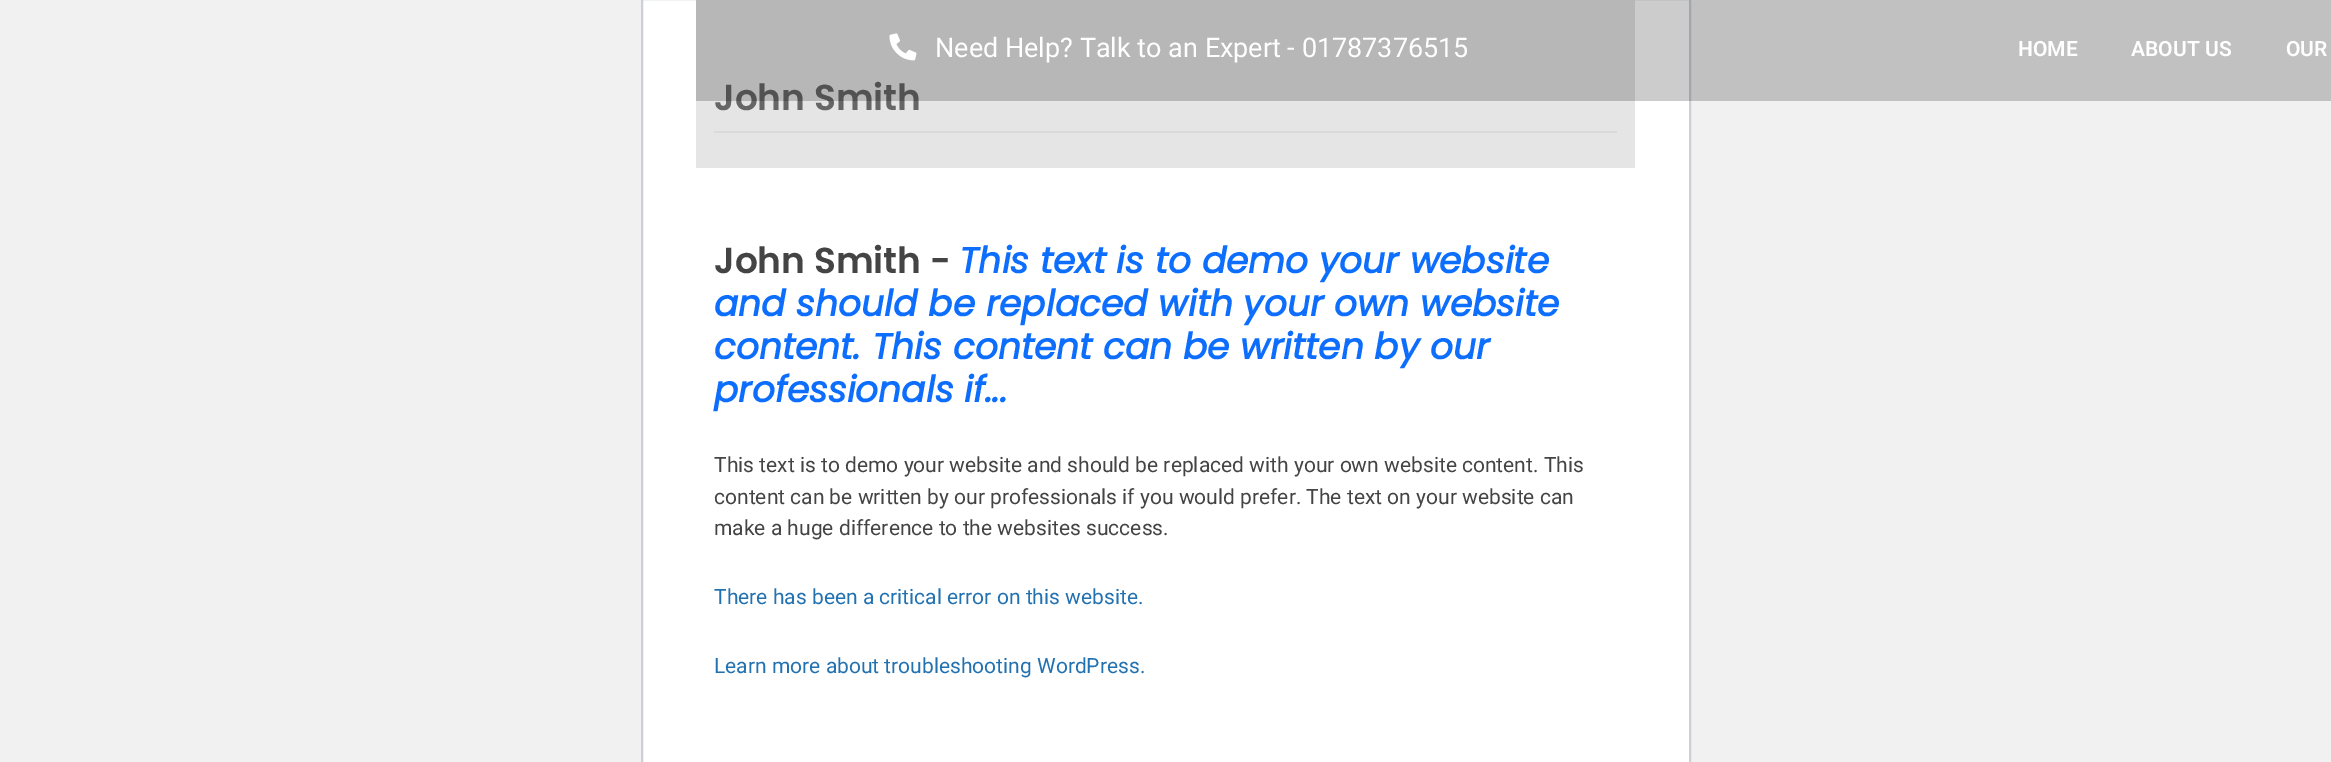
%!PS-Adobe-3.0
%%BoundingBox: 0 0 2331 762
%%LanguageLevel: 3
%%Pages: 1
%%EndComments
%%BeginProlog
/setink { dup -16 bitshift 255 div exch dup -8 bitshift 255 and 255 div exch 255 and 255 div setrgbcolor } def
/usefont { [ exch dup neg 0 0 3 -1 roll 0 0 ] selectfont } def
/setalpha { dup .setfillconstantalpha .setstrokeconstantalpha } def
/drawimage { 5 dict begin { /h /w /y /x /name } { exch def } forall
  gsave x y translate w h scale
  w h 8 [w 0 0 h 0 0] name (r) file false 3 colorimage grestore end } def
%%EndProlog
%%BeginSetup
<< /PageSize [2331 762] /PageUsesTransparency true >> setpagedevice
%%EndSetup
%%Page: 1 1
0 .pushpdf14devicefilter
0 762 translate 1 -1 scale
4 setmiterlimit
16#F1F1F1 setink
0 0 2331 762 rectfill
16#FFFFFF setink
642 -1 moveto 1690 -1 lineto 1690 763 lineto 642 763 lineto closepath gsave fill grestore
16#CCD0D4 setink
2 setlinewidth
stroke
16#E5E5E5 setink
696 0 939 168 rectfill
/Poppins-SemiBold 36 usefont
16#666666 setink
714 110 moveto (John Smith) show
0.2 setalpha
16#000000 setink
696 0 1635 101 rectfill
1 setalpha
(img1.raw) 889 33 28 28 drawimage
/Roboto-Regular 27 usefont
16#FFFFFF setink
935 57 moveto (Need Help? Talk to an Expert - 01787376515) show
/Roboto-SemiBold 21 usefont
[
    [(HOME) 2018 56]
    [(ABOUT US) 2131 56]
    [(OUR) 2286 56]
] { aload pop moveto show } forall
16#DADADA setink
714 131 903 2 rectfill
/Poppins-SemiBold 36 usefont
16#444444 setink
714 273 moveto (John Smith -) show
/Poppins-BoldItalic 36 usefont
16#0D6EFD setink
[
    [(This text is to demo your website) 959 273]
    [(and should be replaced with your own website) 714 316]
    [(content. This content can be written by our) 714 359]
    [(professionals if...) 714 402]
] { aload pop moveto show } forall
/Roboto-Regular 21 usefont
16#444444 setink
[
    [(This text is to demo your website and should be replaced with your own website content. This) 714 472]
    [(content can be written by our professionals if you would prefer. The text on your website can) 714 504]
    [(make a huge difference to the websites success.) 714 535]
] { aload pop moveto show } forall
16#2271B1 setink
714 604 moveto (There has been a critical error on this website.) show
714 673 moveto (Learn more about troubleshooting WordPress.) show
.poppdf14devicefilter showpage
%%EOF
